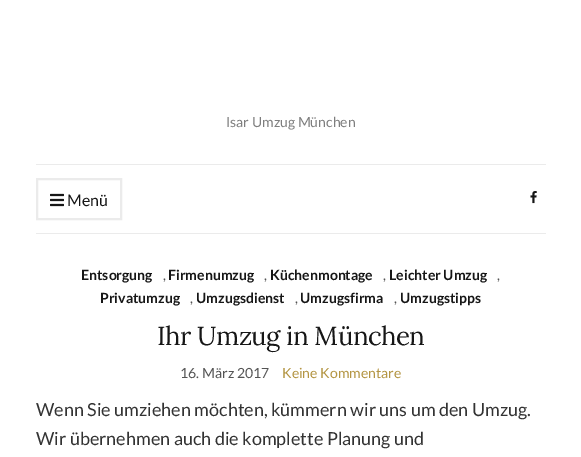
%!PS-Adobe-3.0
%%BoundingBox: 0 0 581 457
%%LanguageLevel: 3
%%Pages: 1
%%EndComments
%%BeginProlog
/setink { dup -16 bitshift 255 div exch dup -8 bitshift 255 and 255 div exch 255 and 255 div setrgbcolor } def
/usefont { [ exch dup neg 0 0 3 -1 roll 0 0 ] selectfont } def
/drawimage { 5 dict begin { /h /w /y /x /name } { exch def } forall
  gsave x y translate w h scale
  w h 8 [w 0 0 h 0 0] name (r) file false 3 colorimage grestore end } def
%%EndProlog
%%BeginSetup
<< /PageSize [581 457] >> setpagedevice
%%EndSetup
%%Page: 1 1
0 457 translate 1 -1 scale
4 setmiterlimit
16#FFFFFF setink
0 0 581 457 rectfill
/Lato-Regular 14 usefont
16#7E7E7E setink
226 127 moveto (Isar Umzug München) show
16#EBEBEB setink
36 164 510 1 rectfill
36 233 510 1 rectfill
2 setlinewidth
37 179 84 40 rectstroke
(img1.raw) 50 193 14 14 drawimage
/Lato-Regular 16 usefont
16#161616 setink
67 206 moveto (Menü) show
(img2.raw) 530 191 7 13 drawimage
/Lato-Bold 14 usefont
81 280 moveto (Entsorgung) show
/Lato-Regular 14 usefont
16#545454 setink
163 280 moveto (,) show
/Lato-Bold 14 usefont
16#161616 setink
168 280 moveto (Firmenumzug) show
/Lato-Regular 14 usefont
16#545454 setink
264 280 moveto (,) show
/Lato-Bold 14 usefont
16#161616 setink
270 280 moveto (Küchenmontage) show
/Lato-Regular 14 usefont
16#545454 setink
383 280 moveto (,) show
/Lato-Bold 14 usefont
16#161616 setink
389 280 moveto (Leichter Umzug) show
/Lato-Regular 14 usefont
16#545454 setink
497 280 moveto (,) show
/Lato-Bold 14 usefont
16#161616 setink
100 303 moveto (Privatumzug) show
/Lato-Regular 14 usefont
16#545454 setink
190 303 moveto (,) show
/Lato-Bold 14 usefont
16#161616 setink
196 303 moveto (Umzugsdienst) show
/Lato-Regular 14 usefont
16#545454 setink
295 303 moveto (,) show
/Lato-Bold 14 usefont
16#161616 setink
300 303 moveto (Umzugsfirma) show
/Lato-Regular 14 usefont
16#545454 setink
394 303 moveto (,) show
/Lato-Bold 14 usefont
16#161616 setink
400 303 moveto (Umzugstipps) show
/Lora-Regular 26 usefont
157 345 moveto -0.6 0 (Ihr Umzug in München) ashow
/Lato-Regular 14 usefont
16#545454 setink
180 378 moveto (16. März 2017) show
16#B49543 setink
282 378 moveto (Keine Kommentare) show
/Lato-Regular 18 usefont
16#333333 setink
36 416 moveto (Wenn Sie umziehen möchten, kümmern wir uns um den Umzug.) show
36 445 moveto (Wir übernehmen auch die komplette Planung und) show
showpage
%%EOF
